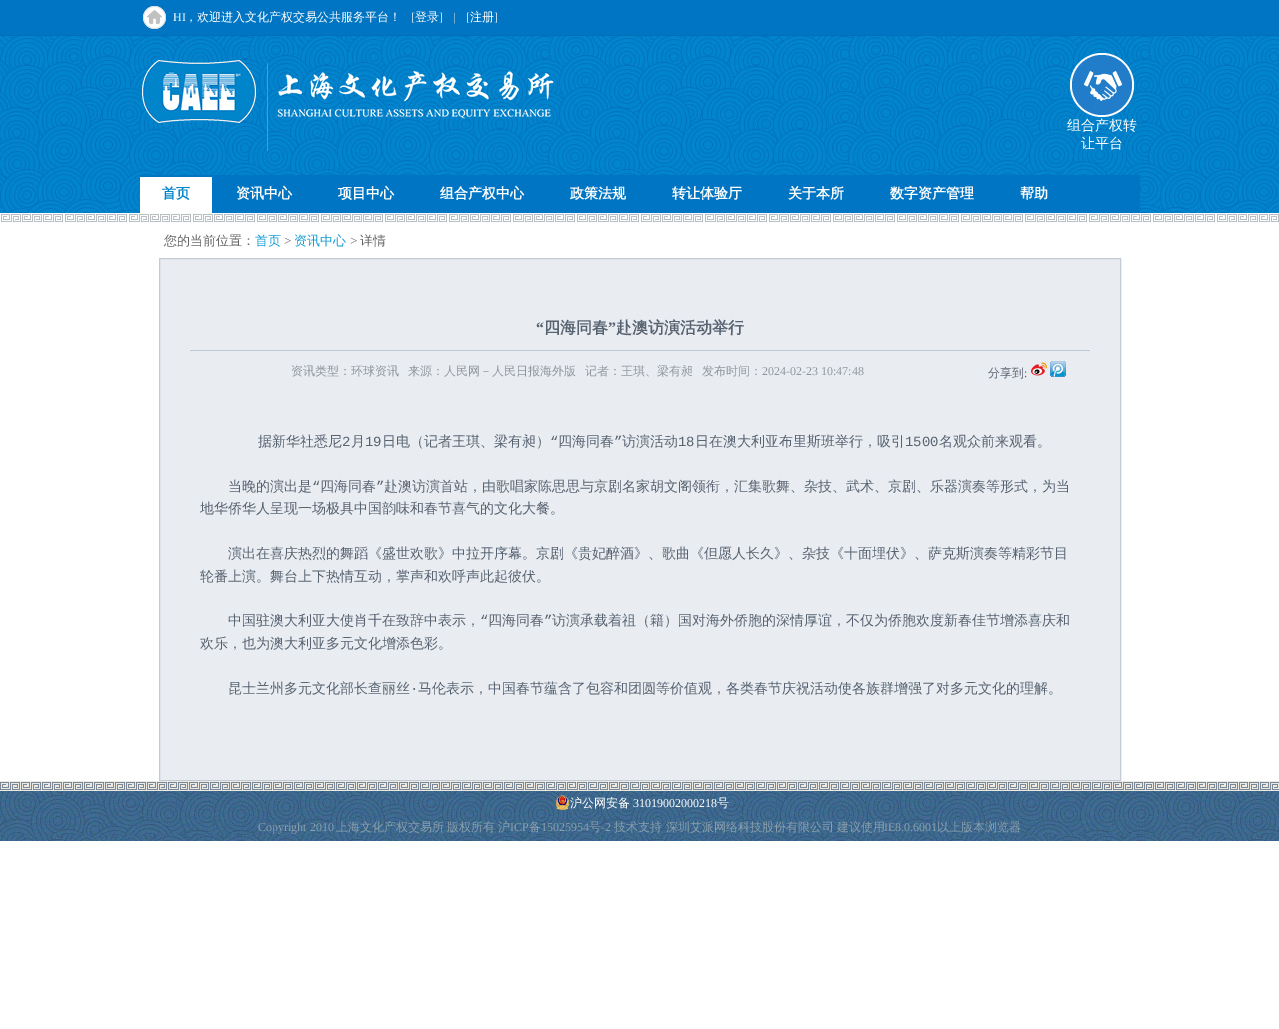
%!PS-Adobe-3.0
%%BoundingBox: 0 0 1279 1029
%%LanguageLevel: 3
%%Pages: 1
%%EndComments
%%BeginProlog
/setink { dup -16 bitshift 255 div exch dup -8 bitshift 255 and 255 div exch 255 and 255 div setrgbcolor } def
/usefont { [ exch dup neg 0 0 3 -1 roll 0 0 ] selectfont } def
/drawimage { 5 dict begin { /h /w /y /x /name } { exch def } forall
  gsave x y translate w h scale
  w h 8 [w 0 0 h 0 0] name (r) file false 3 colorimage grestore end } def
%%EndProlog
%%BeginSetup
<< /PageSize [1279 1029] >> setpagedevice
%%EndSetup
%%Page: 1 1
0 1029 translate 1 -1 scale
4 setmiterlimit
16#FFFFFF setink
0 0 1279 1029 rectfill
16#0075C3 setink
0 0 1279 35 rectfill
16#006FB9 setink
0 35 1279 1 rectfill
(img1.raw) 143 6 23 23 drawimage
/LiberationSerif-Regular 12 usefont
16#FFFFFF setink
173 21 moveto (HI) show
/WenQuanYiZenHei-Medium 12 usefont
185 21 moveto (，欢迎进入文化产权交易公共服务平台！) show
/LiberationSerif-Regular 12 usefont
411 21 moveto ([) show
/WenQuanYiZenHei-Medium 12 usefont
415 21 moveto (登录) show
/LiberationSerif-Regular 12 usefont
439 21 moveto (]) show
16#DFDFDF setink
453 21 moveto (|) show
16#FFFFFF setink
466 21 moveto ([) show
/WenQuanYiZenHei-Medium 12 usefont
470 21 moveto (注册) show
/LiberationSerif-Regular 12 usefont
494 21 moveto (]) show
(img2.raw) 0 36 1279 177 drawimage
(img3.raw) 142 60 412 91 drawimage
(img4.raw) 1070 53 64 64 drawimage
/WenQuanYiZenHei-Medium 14 usefont
1067 130 moveto (组合产权转) show
1081 148 moveto (让平台) show
(img5.raw) 0 213 1279 10 drawimage
16#0075C3 setink
140 175 1000 38 rectfill
16#FFFFFF setink
140 177 72 37 rectfill
/WenQuanYiZenHei-Bold 14 usefont
16#0085CA setink
162 198 moveto (首页) show
16#FFFFFF setink
[
    [(资讯中心) 236 198]
    [(项目中心) 338 198]
    [(组合产权中心) 440 198]
    [(政策法规) 570 198]
    [(转让体验厅) 672 198]
    [(关于本所) 788 198]
    [(数字资产管理) 890 198]
    [(帮助) 1020 198]
] { aload pop moveto show } forall
/WenQuanYiZenHei-Medium 13 usefont
16#666666 setink
164 245 moveto (您的当前位置：) show
16#169CD3 setink
255 245 moveto (首页) show
/LiberationSerif-Regular 13 usefont
16#666666 setink
284 245 moveto (>) show
/WenQuanYiZenHei-Medium 13 usefont
16#169CD3 setink
294 245 moveto (资讯中心) show
/LiberationSerif-Regular 13 usefont
16#666666 setink
350 245 moveto (>) show
/WenQuanYiZenHei-Medium 13 usefont
360 245 moveto (详情) show
16#E9EDF1 setink
159.5 258.5 moveto 1120.5 258.5 lineto 1120.5 780.5 lineto 159.5 780.5 lineto closepath gsave fill grestore
16#C2CBD5 setink
stroke
16#BDC8D7 setink
190 350 900 1 rectfill
/LiberationSerif-Bold 16 usefont
16#586371 setink
536 333 moveto (“) show
/WenQuanYiZenHei-Bold 16 usefont
544 333 moveto (四海同春) show
/LiberationSerif-Bold 16 usefont
608 333 moveto (”) show
/WenQuanYiZenHei-Bold 16 usefont
616 333 moveto (赴澳访演活动举行) show
/WenQuanYiZenHei-Medium 12 usefont
16#90969D setink
[
    [(资讯类型：环球资讯) 291 375]
    [(来源：人民网－人民日报海外版) 408 375]
    [(记者：王琪、梁有昶) 585 375]
    [(发布时间：) 702 375]
] { aload pop moveto show } forall
/LiberationSerif-Regular 12 usefont
762 375 moveto (2024-02-23 10:47:48) show
/WenQuanYiZenHei-Medium 12 usefont
16#586371 setink
988 377 moveto (分享到) show
/LiberationSerif-Regular 12 usefont
1024 377 moveto (:) show
(img6.raw) 1031 362 16 14 drawimage
(img7.raw) 1050 361 16 16 drawimage
/WenQuanYiZenHei-Medium 14 usefont
258 446 moveto (据新华社悉尼) show
/LiberationMono-Regular 14 usefont
342 446 moveto (2) show
/WenQuanYiZenHei-Medium 14 usefont
351 446 moveto (月) show
/LiberationMono-Regular 14 usefont
365 446 moveto (19) show
/WenQuanYiZenHei-Medium 14 usefont
382 446 moveto (日电（记者王琪、梁有昶）) show
/LiberationMono-Regular 14 usefont
550 446 moveto (“) show
/WenQuanYiZenHei-Medium 14 usefont
558 446 moveto (四海同春) show
/LiberationMono-Regular 14 usefont
614 446 moveto (”) show
/WenQuanYiZenHei-Medium 14 usefont
622 446 moveto (访演活动) show
/LiberationMono-Regular 14 usefont
678 446 moveto (18) show
/WenQuanYiZenHei-Medium 14 usefont
695 446 moveto (日在澳大利亚布里斯班举行，吸引) show
/LiberationMono-Regular 14 usefont
905 446 moveto (1500) show
/WenQuanYiZenHei-Medium 14 usefont
939 446 moveto (名观众前来观看。) show
228 491 moveto (当晚的演出是) show
/LiberationMono-Regular 14 usefont
312 491 moveto (“) show
/WenQuanYiZenHei-Medium 14 usefont
320 491 moveto (四海同春) show
/LiberationMono-Regular 14 usefont
376 491 moveto (”) show
/WenQuanYiZenHei-Medium 14 usefont
[
    [(赴澳访演首站，由歌唱家陈思思与京剧名家胡文阁领衔，汇集歌舞、杂技、武术、京剧、乐器演奏等形式，为当) 384 491]
    [(地华侨华人呈现一场极具中国韵味和春节喜气的文化大餐。) 200 513]
    [(演出在喜庆热烈的舞蹈《盛世欢歌》中拉开序幕。京剧《贵妃醉酒》、歌曲《但愿人长久》、杂技《十面埋伏》、萨克斯演奏等精彩节目) 228 558]
    [(轮番上演。舞台上下热情互动，掌声和欢呼声此起彼伏。) 200 581]
    [(中国驻澳大利亚大使肖千在致辞中表示，) 228 625]
] { aload pop moveto show } forall
/LiberationMono-Regular 14 usefont
480 625 moveto (“) show
/WenQuanYiZenHei-Medium 14 usefont
488 625 moveto (四海同春) show
/LiberationMono-Regular 14 usefont
544 625 moveto (”) show
/WenQuanYiZenHei-Medium 14 usefont
[
    [(访演承载着祖（籍）国对海外侨胞的深情厚谊，不仅为侨胞欢度新春佳节增添喜庆和) 552 625]
    [(欢乐，也为澳大利亚多元文化增添色彩。) 200 648]
    [(昆士兰州多元文化部长查丽丝) 228 693]
] { aload pop moveto show } forall
/LiberationMono-Regular 14 usefont
410 693 moveto (·) show
/WenQuanYiZenHei-Medium 14 usefont
418 693 moveto (马伦表示，中国春节蕴含了包容和团圆等价值观，各类春节庆祝活动使各族群增强了对多元文化的理解。) show
(img8.raw) 0 781 1279 10 drawimage
(img9.raw) 0 791 1279 50 drawimage
(img10.raw) 555 795 15 15 drawimage
/WenQuanYiZenHei-Medium 12 usefont
16#FFFFFF setink
570 807 moveto (沪公网安备) show
/LiberationSerif-Regular 12 usefont
633 807 moveto (31019002000218) show
/WenQuanYiZenHei-Medium 12 usefont
717 807 moveto (号) show
/LiberationSerif-Regular 12 usefont
16#8BA0AD setink
258 831 moveto (Copyright 2010) show
/WenQuanYiZenHei-Medium 12 usefont
[
    [(上海文化产权交易所) 336 831]
    [(版权所有) 447 831]
    [(沪) 498 831]
] { aload pop moveto show } forall
/LiberationSerif-Regular 12 usefont
510 831 moveto (ICP) show
/WenQuanYiZenHei-Medium 12 usefont
529 831 moveto (备) show
/LiberationSerif-Regular 12 usefont
541 831 moveto (15025954) show
/WenQuanYiZenHei-Medium 12 usefont
589 831 moveto (号) show
/LiberationSerif-Regular 12 usefont
601 831 moveto (-2) show
/WenQuanYiZenHei-Medium 12 usefont
614 831 moveto (技术支持 深圳艾派网络科技股份有限公司 建议使用) show
/LiberationSerif-Regular 12 usefont
884 831 moveto (IE8.0.6001) show
/WenQuanYiZenHei-Medium 12 usefont
937 831 moveto (以上版本浏览器) show
showpage
%%EOF
